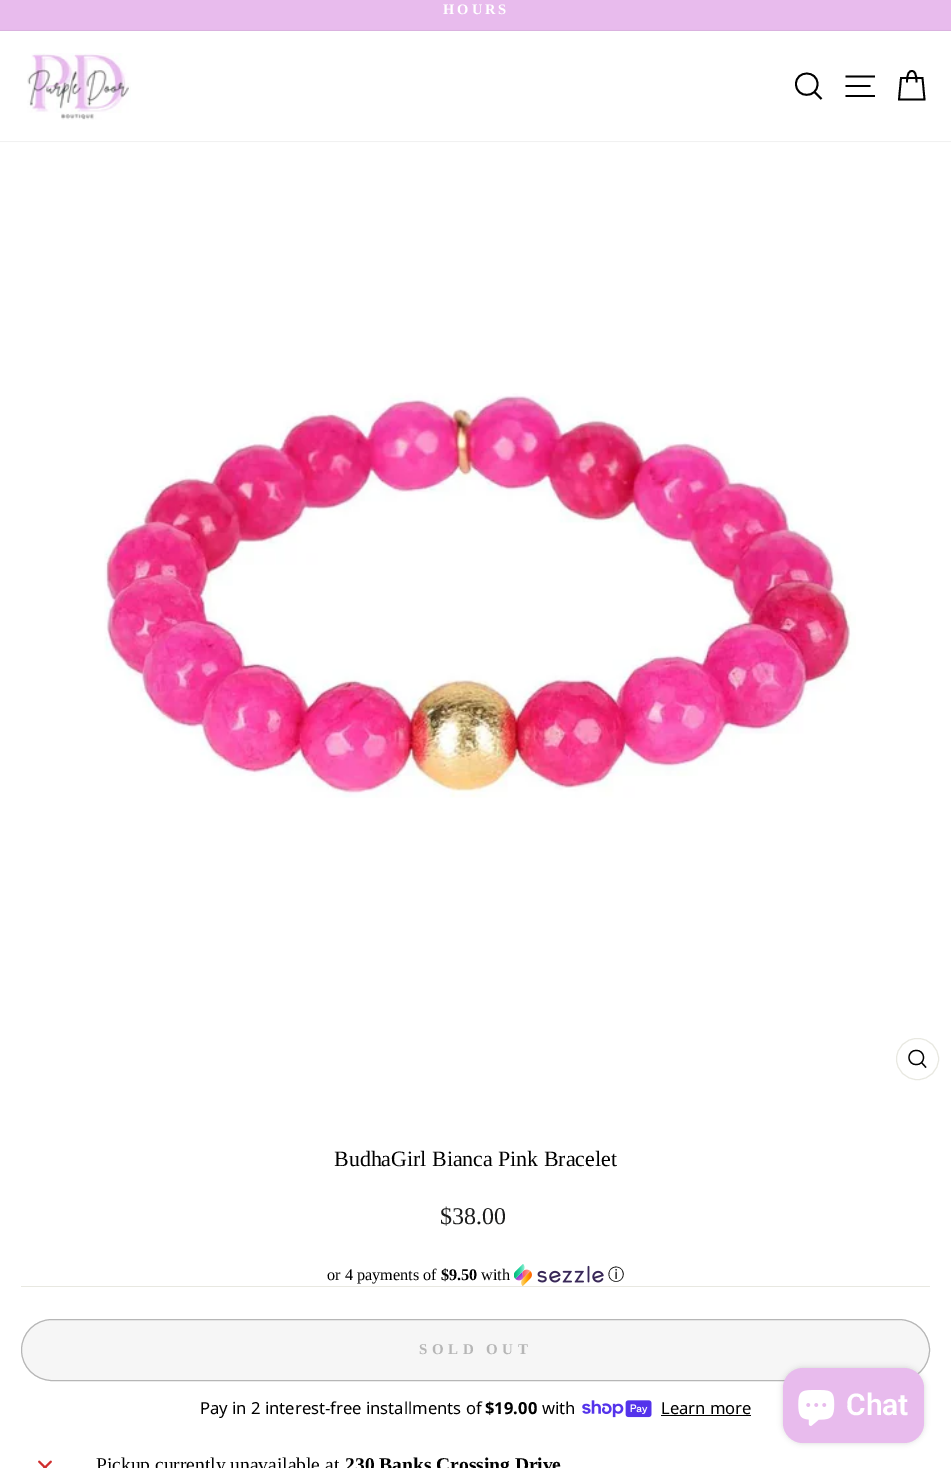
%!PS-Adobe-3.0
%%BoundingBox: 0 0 951 1468
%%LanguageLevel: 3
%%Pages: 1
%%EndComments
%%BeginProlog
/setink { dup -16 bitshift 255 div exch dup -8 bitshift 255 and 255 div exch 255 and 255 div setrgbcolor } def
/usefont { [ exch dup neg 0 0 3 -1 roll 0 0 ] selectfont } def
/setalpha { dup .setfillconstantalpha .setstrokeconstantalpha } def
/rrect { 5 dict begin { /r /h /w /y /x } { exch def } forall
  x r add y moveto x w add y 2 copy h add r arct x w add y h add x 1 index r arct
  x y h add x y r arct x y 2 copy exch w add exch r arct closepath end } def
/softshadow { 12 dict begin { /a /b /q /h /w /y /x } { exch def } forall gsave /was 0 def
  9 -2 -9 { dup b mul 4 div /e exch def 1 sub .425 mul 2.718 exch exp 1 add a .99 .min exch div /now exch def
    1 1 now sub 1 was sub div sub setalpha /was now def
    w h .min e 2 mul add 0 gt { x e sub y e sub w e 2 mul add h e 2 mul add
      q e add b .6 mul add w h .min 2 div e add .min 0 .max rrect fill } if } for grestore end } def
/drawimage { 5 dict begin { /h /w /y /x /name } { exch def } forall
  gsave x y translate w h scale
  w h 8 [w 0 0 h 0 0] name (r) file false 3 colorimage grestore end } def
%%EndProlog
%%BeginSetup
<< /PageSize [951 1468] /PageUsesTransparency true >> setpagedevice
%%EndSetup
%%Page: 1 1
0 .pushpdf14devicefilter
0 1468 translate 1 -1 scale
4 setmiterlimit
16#FFFFFF setink
0 0 951 1468 rectfill
16#E8BBED setink
0 0 951 31 rectfill
/LiberationSerif-Bold 14.5 usefont
16#FFFFFF setink
443 14 moveto 3 0 (HOURS) ashow
16#000000 setink
0 31 951 110 0 0.5 0.2 softshadow
16#FFFFFF setink
0 31 951 110 rectfill
(img1.raw) 27 53 104 67 drawimage
16#000000 setink
1.8 setlinewidth
817.5 84 moveto 817.5 98.5 796 98.5 796 84 curveto 796 70 817.5 70 817.5 84 curveto closepath 821.5 99 moveto 814.5 92 lineto stroke
845.5 76.5 moveto 875 76.5 lineto 845.5 86 moveto 870.5 86 lineto 845.5 96 moveto 875 96 lineto stroke
907 82.5 moveto 907 73.5 909 71 912 71 curveto 914.5 71 916.5 73.5 916.5 82.5 curveto 901 78 moveto 922.5 78 lineto 924.5 99.5 lineto 899 99.5 lineto closepath stroke
(img2.raw) 104 393 752 405 drawimage
16#E8E8E1 setink
1 setlinewidth
896.5 1038.5 42 41 20.5 rrect stroke
16#000000 setink
1.2 setlinewidth
923.5 1057.5 moveto 923.5 1067 909 1067 909 1057.5 curveto 909 1048 923.5 1048 923.5 1057.5 curveto closepath 926 1067.5 moveto 921.5 1062.5 lineto stroke
/LiberationSerif-Regular 21.9 usefont
334 1166 moveto (BudhaGirl Bianca Pink Bracelet) show
/LiberationSerif-Regular 24 usefont
16#1C1D1D setink
440 1224 moveto ($38.00) show
/LiberationSerif-Regular 16.25 usefont
16#000000 setink
327 1280 moveto (or 4 payments of) show
/LiberationSerif-Bold 16.25 usefont
441 1280 moveto ($9.50) show
/LiberationSerif-Regular 16.25 usefont
481 1280 moveto (with) show
(img3.raw) 514 1264 90 22 drawimage
/WenQuanYiZenHei-Medium 16.25 usefont
608 1280 moveto (ⓘ) show
16#E8E8E1 setink
21 1286 909 1 rectfill
16#F6F6F6 setink
21.5 1319.5 908 61 30.5 rrect gsave fill grestore
16#B6B6B6 setink
1 setlinewidth
stroke
/LiberationSerif-Bold 15 usefont
419 1354 moveto 4.5 0 (SOLD OUT) ashow
/NotoSans-Regular 16.6 usefont
16#000000 setink
200 1414 moveto (Pay in 2 interest-free installments of) show
/NotoSans-Bold 16.6 usefont
485 1414 moveto ($19.00) show
/NotoSans-Regular 16.6 usefont
542 1414 moveto (with) show
(img4.raw) 582 1400 70 18 drawimage
661 1414 moveto (Learn more) show
661 1415 90 1 rectfill
(img5.raw) 38 1460 14 8 drawimage
/LiberationSerif-Regular 19.5 usefont
96 1471 moveto (Pickup currently unavailable at) show
/LiberationSerif-Bold 19.5 usefont
345 1471 moveto (230 Banks Crossing Drive) show
783 1368 141 75 20 3 0.15 softshadow
16#E8BBED setink
783 1368 141 75 20 rrect fill
(img6.raw) 798 1390 37 36 drawimage
/Roboto-SemiBold 30 usefont
16#FFFFFF setink
846 1415 moveto (Chat) show
.poppdf14devicefilter showpage
%%EOF
